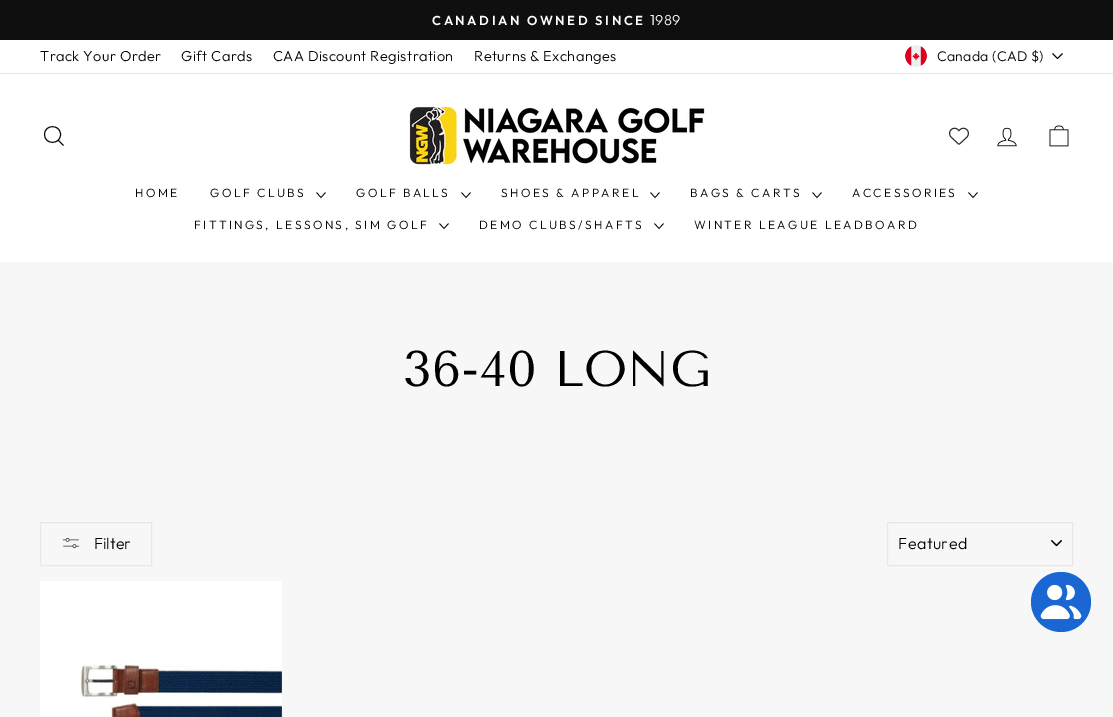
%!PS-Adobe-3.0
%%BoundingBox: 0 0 1113 717
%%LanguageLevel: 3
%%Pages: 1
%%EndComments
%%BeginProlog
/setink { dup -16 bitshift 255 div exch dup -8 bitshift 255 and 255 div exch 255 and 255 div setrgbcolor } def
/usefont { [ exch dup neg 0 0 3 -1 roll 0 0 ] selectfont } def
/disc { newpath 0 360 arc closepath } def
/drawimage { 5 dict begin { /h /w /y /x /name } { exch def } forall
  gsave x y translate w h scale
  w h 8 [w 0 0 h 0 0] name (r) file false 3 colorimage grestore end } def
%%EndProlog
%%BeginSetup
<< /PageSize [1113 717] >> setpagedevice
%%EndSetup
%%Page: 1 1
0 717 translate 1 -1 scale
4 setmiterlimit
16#F7F7F7 setink
0 0 1113 717 rectfill
16#0F0F0F setink
0 0 1113 40 rectfill
/Outfit-SemiBold 13 usefont
16#FFFFFF setink
432 25 moveto 2.6 0 (CANADIAN OWNED SINCE) ashow
/Outfit-Light 14.5 usefont
650 25 moveto 0.4 0 (1989) ashow
0 40 1113 33 rectfill
16#000000 setink
40 61 moveto 0.4 0 (Track Your Order) ashow
181 61 moveto 0.4 0 (Gift Cards) ashow
273 61 moveto 0.4 0 (CAA Discount Registration) ashow
474 61 moveto 0.4 0 (Returns & Exchanges) ashow
(img1.raw) 905 45 22 22 drawimage
/Outfit-Light 14 usefont
937 61 moveto 0.3 0 (Canada \(CAD $\)) ashow
0.8 setlinewidth
1052.5 53.5 moveto 1057.5 58.5 lineto 1062.5 53.5 lineto stroke
16#FFFFFF setink
0 74 1113 188 rectfill
16#E6E6E6 setink
0 73 1113 1 rectfill
16#000000 setink
0.9 setlinewidth
60.5 134.5 moveto 60.5 145 44.5 145 44.5 134.5 curveto 44.5 124 60.5 124 60.5 134.5 curveto closepath 63.5 145.5 moveto 58.5 140.5 lineto stroke
(img2.raw) 409 106 296 59 drawimage
(img3.raw) 949 127 20 18 drawimage
(img4.raw) 997 127 20 20 drawimage
(img5.raw) 1049 125 20 22 drawimage
/Outfit-Light 12 usefont
135 197 moveto 2.4 0 (HOME) ashow
210 197 moveto 2.4 0 (GOLF CLUBS) ashow
0.7 setlinewidth
316.5 192.5 moveto 321 197.5 lineto 325.5 192.5 lineto stroke
356 197 moveto 2.4 0 (GOLF BALLS) ashow
461.5 192.5 moveto 466 197.5 lineto 470.5 192.5 lineto stroke
501 197 moveto 2.4 0 (SHOES & APPAREL) ashow
650.5 192.5 moveto 655 197.5 lineto 659.5 192.5 lineto stroke
690 197 moveto 2.4 0 (BAGS & CARTS) ashow
812.5 192.5 moveto 817 197.5 lineto 821.5 192.5 lineto stroke
852 197 moveto 2.4 0 (ACCESSORIES) ashow
968.5 192.5 moveto 973 197.5 lineto 977.5 192.5 lineto stroke
194 229 moveto 2.4 0 (FITTINGS, LESSONS, SIM GOLF) ashow
439.5 223.5 moveto 444 228.5 lineto 448.5 223.5 lineto stroke
479 229 moveto 2.4 0 (DEMO CLUBS/SHAFTS) ashow
654.5 223.5 moveto 659 228.5 lineto 663.5 223.5 lineto stroke
694 229 moveto 2.4 0 (WINTER LEAGUE LEADBOARD) ashow
/TenorSans-Regular 50 usefont
403 386 moveto (36-40 LONG) show
16#E8E8E1 setink
1 setlinewidth
40.5 522.5 111 43 rectstroke
(img6.raw) 62 538 18 10 drawimage
/Outfit-Light 16 usefont
16#000000 setink
94 549 moveto (Filter) show
(img7.raw) 1051 540 11 7 drawimage
16#E8E8E1 setink
887.5 522.5 185 43 rectstroke
16#000000 setink
898 549 moveto 0.5 0 (Featured) ashow
16#FFFFFF setink
40 581 242 136 rectfill
(img8.raw) 80 664 202 53 drawimage
16#1A66D2 setink
1061 602 30 disc fill
(img9.raw) 1040 584 42 36 drawimage
showpage
%%EOF
